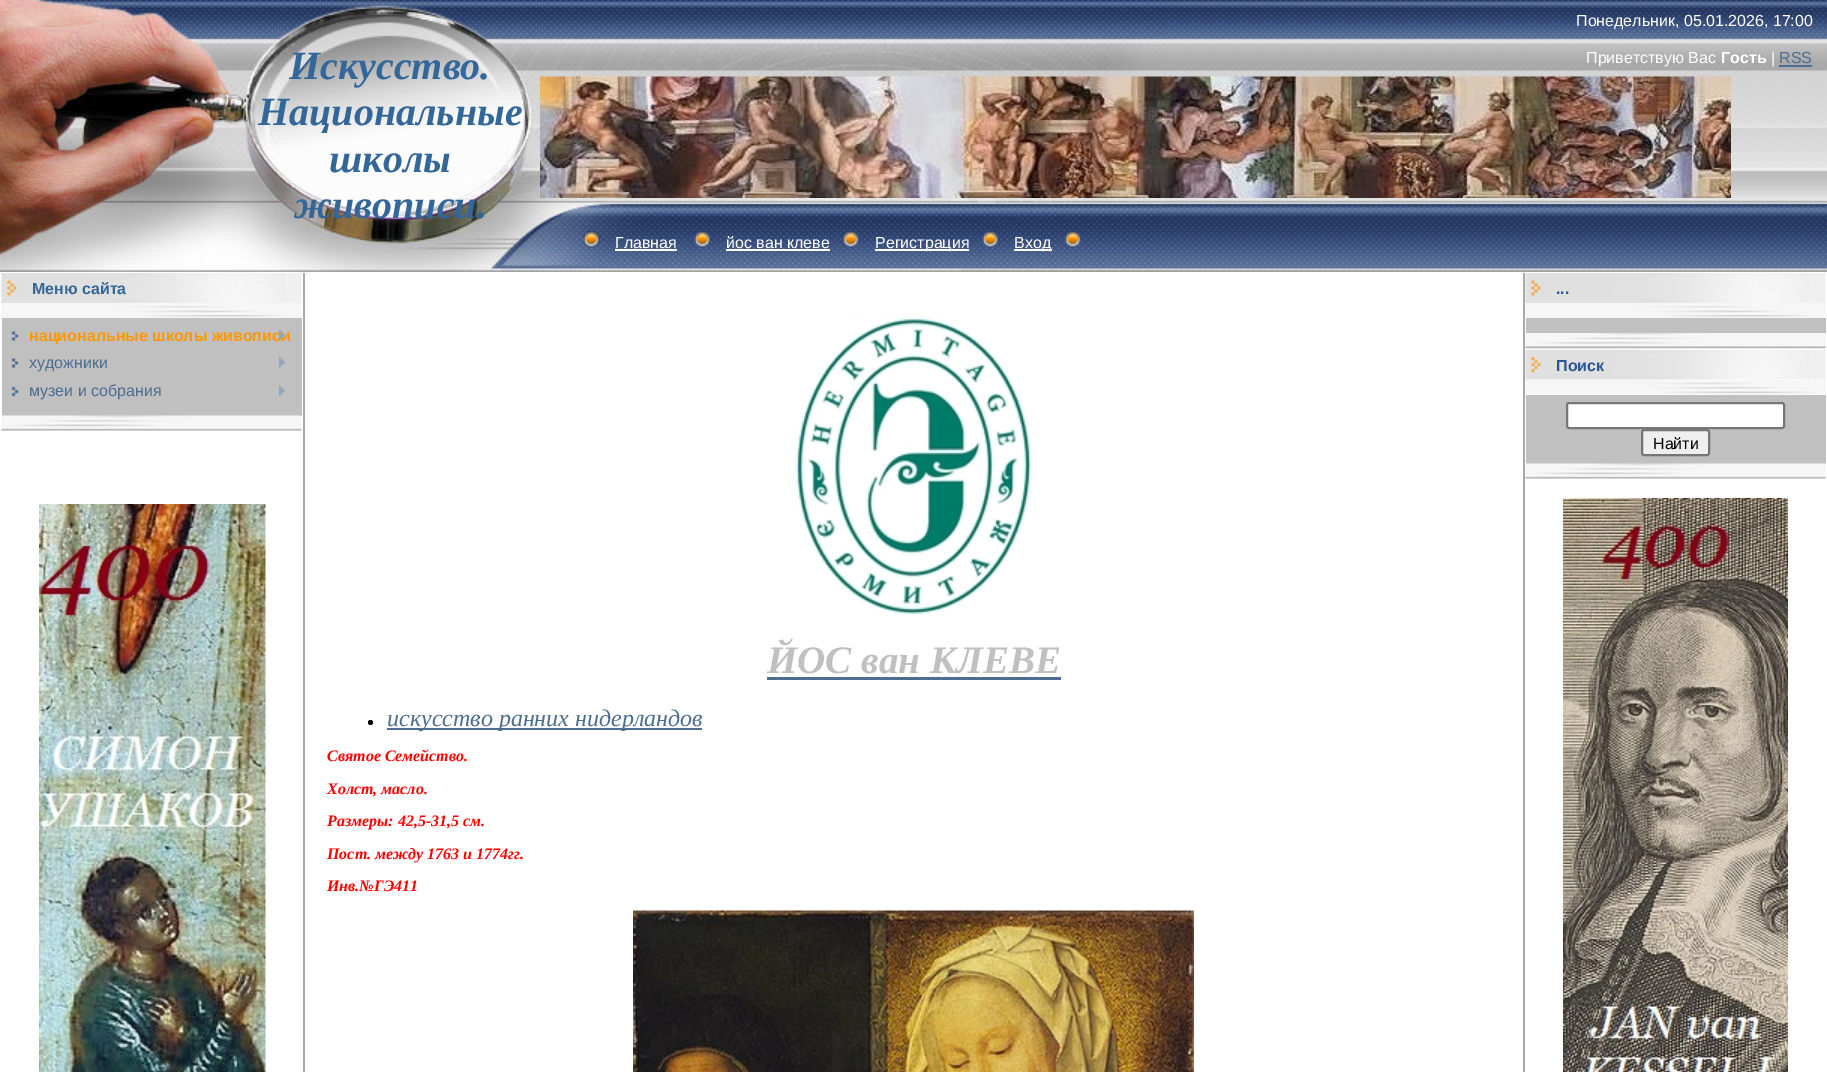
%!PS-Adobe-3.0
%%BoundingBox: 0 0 1827 1072
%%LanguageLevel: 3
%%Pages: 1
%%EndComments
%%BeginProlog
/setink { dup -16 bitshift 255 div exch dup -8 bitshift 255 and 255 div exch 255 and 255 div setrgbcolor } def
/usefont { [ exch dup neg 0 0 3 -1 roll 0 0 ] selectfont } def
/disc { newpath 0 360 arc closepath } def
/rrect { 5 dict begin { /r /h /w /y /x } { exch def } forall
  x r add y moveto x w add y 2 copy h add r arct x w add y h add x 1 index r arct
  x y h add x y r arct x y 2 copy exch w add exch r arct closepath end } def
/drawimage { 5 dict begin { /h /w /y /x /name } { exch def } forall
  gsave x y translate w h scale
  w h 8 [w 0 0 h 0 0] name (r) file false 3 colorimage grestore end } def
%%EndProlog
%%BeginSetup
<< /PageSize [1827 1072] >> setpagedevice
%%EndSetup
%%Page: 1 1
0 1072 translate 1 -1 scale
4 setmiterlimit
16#FFFFFF setink
0 0 1827 1072 rectfill
16#A1A1A1 setink
0 271 1827 1 rectfill
(img1.raw) 1165 0 662 271 drawimage
(img2.raw) 0 0 540 272 drawimage
/LiberationSerif-BoldItalic 40 usefont
16#336699 setink
[
    [(Искусство.) 289 79]
    [(Национальные) 258 125]
    [(школы) 329 172]
    [(живописи.) 294 218]
] { aload pop moveto show } forall
(img3.raw) 540 0 626 272 drawimage
/LiberationSans-Regular 16 usefont
16#FFFFFF setink
1576 26 moveto (Понедельник, 05.01.2026, 17:00) show
1586 63 moveto (Приветствую Вас) show
/LiberationSans-Bold 16 usefont
1721 63 moveto (Гость) show
/LiberationSans-Regular 16 usefont
1771 63 moveto (|) show
16#4D6D91 setink
1779 63 moveto (RSS) show
1779 65 33 2 rectfill
(img4.raw) 540 76 1191 122 drawimage
(img5.raw) 583 230 18 18 drawimage
16#FFFFFF setink
615 248 moveto (Главная) show
615 249 62 2 rectfill
(img6.raw) 694 230 18 18 drawimage
726 248 moveto (йос ван клеве) show
726 249 104 2 rectfill
(img7.raw) 842 230 18 18 drawimage
875 249 94 2 rectfill
875 248 moveto (Регистрация) show
(img8.raw) 982 231 17 17 drawimage
1014 249 38 2 rectfill
1014 248 moveto (Вход) show
(img9.raw) 1064 230 18 18 drawimage
(img10.raw) 1 273 301 30 drawimage
/LiberationSans-Bold 16 usefont
16#336699 setink
32 294 moveto (Меню сайта) show
(img11.raw) 1 303 301 15 drawimage
16#C0C0C0 setink
2 318 300 98 rectfill
(img12.raw) 11 331 8 10 drawimage
16#FF9800 setink
29 341 moveto (национальные школы живописи) show
(img13.raw) 279 330 6 11 drawimage
(img12.raw) 11 358 8 10 drawimage
/LiberationSans-Regular 16 usefont
16#4D6D91 setink
29 368 moveto (художники) show
(img14.raw) 279 357 6 11 drawimage
(img15.raw) 11 386 8 11 drawimage
29 396 moveto (музеи и собрания) show
(img16.raw) 279 385 6 11 drawimage
(img17.raw) 1 415 301 16 drawimage
(img18.raw) 39 504 227 568 drawimage
(img10.raw) 1525 273 301 30 drawimage
/LiberationSans-Bold 16 usefont
16#2C5497 setink
1556 294 moveto (...) show
(img11.raw) 1525 303 301 15 drawimage
16#C0C0C0 setink
1526 318 300 15 rectfill
(img20.raw) 1525 349 301 31 drawimage
(img19.raw) 1525 333 301 17 drawimage
16#2C5497 setink
1556 371 moveto (Поиск) show
(img21.raw) 1525 380 301 15 drawimage
16#C0C0C0 setink
1526 395 300 69 rectfill
16#FFFFFF setink
1567 403 217 25 2 rrect gsave fill grestore
16#767676 setink
2 setlinewidth
stroke
16#EFEFEF setink
1642 430 67 25 2 rrect gsave fill grestore
16#767676 setink
stroke
/LiberationSans-Regular 16 usefont
16#000000 setink
1653 449 moveto (Найти) show
(img17.raw) 1525 463 301 16 drawimage
(img22.raw) 1563 498 225 574 drawimage
16#A9A9A9 setink
1523 273 2 799 rectfill
303 273 2 799 rectfill
(img23.raw) 795 317 237 298 drawimage
/LiberationSerif-BoldItalic 39 usefont
16#C0C0C0 setink
767 673 moveto (ЙОС ван КЛЕВЕ) show
16#4D6D91 setink
767 677 294 3 rectfill
16#000000 setink
370.5 722.5 2.5 disc fill
16#4D6D91 setink
387 728 315 2 rectfill
/LiberationSerif-Italic 24 usefont
387 726 moveto (искусство ранних нидерландов) show
/LiberationSerif-BoldItalic 16 usefont
16#FF0000 setink
[
    [(Святое Семейство.) 327 761]
    [(Холст, масло.) 327 794]
    [(Размеры: 42,5-31,5 см.) 327 826]
    [(Пост. между 1763 и 1774гг.) 327 859]
    [(Инв.№ГЭ411) 327 891]
] { aload pop moveto show } forall
(img24.raw) 633 910 561 162 drawimage
showpage
%%EOF
